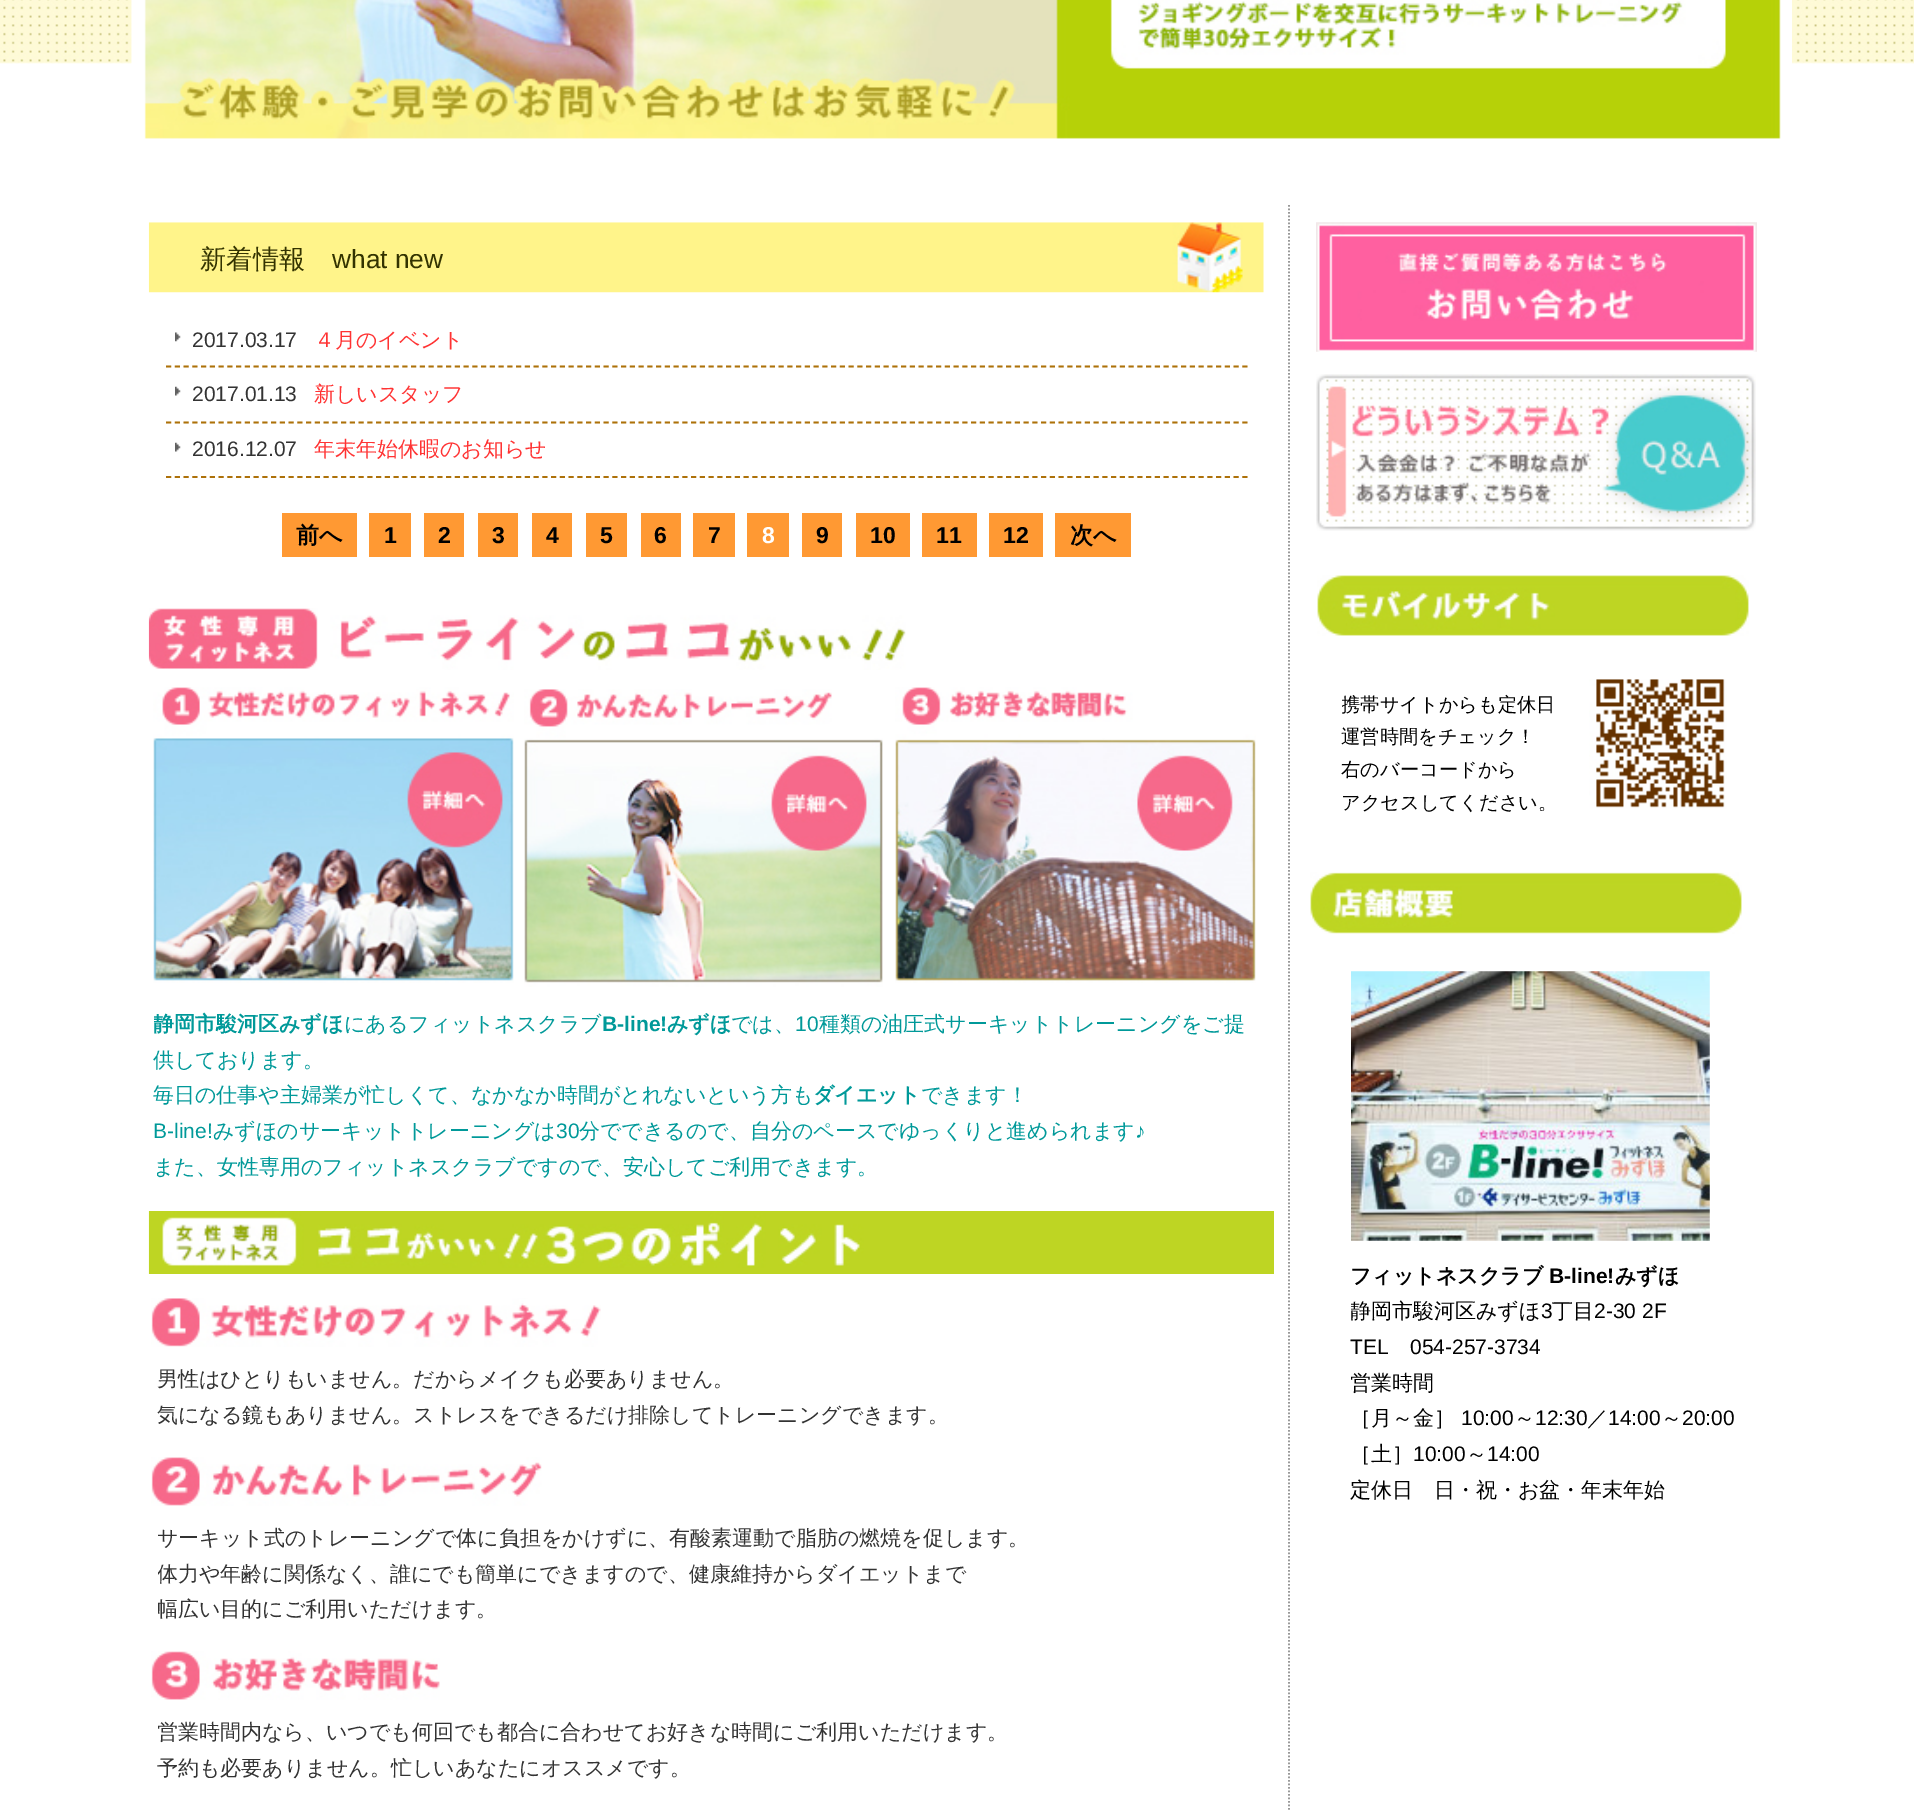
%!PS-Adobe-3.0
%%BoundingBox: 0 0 1914 1810
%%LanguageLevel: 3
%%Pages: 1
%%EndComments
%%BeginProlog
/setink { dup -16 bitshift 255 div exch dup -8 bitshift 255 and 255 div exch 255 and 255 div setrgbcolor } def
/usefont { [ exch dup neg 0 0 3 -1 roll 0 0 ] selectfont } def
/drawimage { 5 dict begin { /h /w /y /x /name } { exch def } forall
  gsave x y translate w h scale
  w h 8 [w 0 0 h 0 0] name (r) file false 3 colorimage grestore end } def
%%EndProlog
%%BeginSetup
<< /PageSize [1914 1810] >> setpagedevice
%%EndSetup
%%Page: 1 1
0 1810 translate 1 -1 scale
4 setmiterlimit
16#FFFFFF setink
0 0 1914 1810 rectfill
(img1.raw) 0 0 1914 64 drawimage
(img2.raw) 131 0 1661 139 drawimage
(img3.raw) 148 222 1116 71 drawimage
/WenQuanYiZenHei-Medium 26.25 usefont
16#333300 setink
200 268 moveto (新着情報) show
/LiberationSans-Regular 26.25 usefont
332 268 moveto (what new) show
(img4.raw) 175 332 6 10 drawimage
16#AD7109 setink
1.8 setlinewidth
[5.25 3.5] 0 setdash
166 366.5 moveto 1248 366.5 lineto stroke
/LiberationSans-Regular 21 usefont
16#333333 setink
192 347 moveto (2017.03.17) show
/WenQuanYiZenHei-Medium 21 usefont
16#FF3333 setink
314 347 moveto (４月のイベント) show
(img5.raw) 175 386 6 10 drawimage
16#AD7109 setink
166 422.5 moveto 1248 422.5 lineto stroke
/LiberationSans-Regular 21 usefont
16#333333 setink
192 401 moveto (2017.01.13) show
/WenQuanYiZenHei-Medium 21 usefont
16#FF3333 setink
314 401 moveto (新しいスタッフ) show
(img5.raw) 175 442 6 10 drawimage
16#AD7109 setink
166 477 moveto 1248 477 lineto stroke
/LiberationSans-Regular 21 usefont
16#333333 setink
192 456 moveto (2016.12.07) show
/WenQuanYiZenHei-Medium 21 usefont
16#FF3333 setink
314 456 moveto (年末年始休暇のお知らせ) show
16#FF9933 setink
282 513 75 44 rectfill
/WenQuanYiZenHei-Bold 23 usefont
16#000000 setink
296 543 moveto (前へ) show
16#FF9933 setink
369 513 42 44 rectfill
/LiberationSans-Bold 23 usefont
16#000000 setink
384 543 moveto (1) show
16#FF9933 setink
424 513 40 44 rectfill
16#000000 setink
438 543 moveto (2) show
16#FF9933 setink
478 513 40 44 rectfill
16#000000 setink
492 543 moveto (3) show
16#FF9933 setink
532 513 40 44 rectfill
16#000000 setink
546 543 moveto (4) show
16#FF9933 setink
586 513 41 44 rectfill
16#000000 setink
600 543 moveto (5) show
16#FF9933 setink
641 513 40 44 rectfill
16#000000 setink
654 543 moveto (6) show
16#FF9933 setink
693 513 42 44 rectfill
16#000000 setink
708 543 moveto (7) show
16#FF9933 setink
747 513 42 44 rectfill
16#FFFFFF setink
762 543 moveto (8) show
16#FF9933 setink
802 513 40 44 rectfill
16#000000 setink
816 543 moveto (9) show
16#FF9933 setink
856 513 54 44 rectfill
16#000000 setink
870 543 moveto (10) show
16#FF9933 setink
922 513 55 44 rectfill
16#000000 setink
936 543 moveto (11) show
16#FF9933 setink
989 513 54 44 rectfill
16#000000 setink
1003 543 moveto (12) show
16#FF9933 setink
1055 513 76 44 rectfill
/WenQuanYiZenHei-Bold 23 usefont
16#000000 setink
1070 543 moveto (次へ) show
(img6.raw) 148 608 758 62 drawimage
(img7.raw) 153 687 361 296 drawimage
(img8.raw) 524 689 359 298 drawimage
(img9.raw) 895 687 361 296 drawimage
gsave
154 1006 1108 179 rectclip
/WenQuanYiZenHei-Bold 21 usefont
16#009999 setink
153 1031 moveto (静岡市) show
grestore
/WenQuanYiZenHei-Bold 21 usefont
16#009999 setink
216 1031 moveto (駿河区みずほ) show
/WenQuanYiZenHei-Medium 21 usefont
344 1031 moveto (にあるフィットネスクラブ) show
/LiberationSans-Bold 21 usefont
602 1031 moveto (B-line!) show
/WenQuanYiZenHei-Bold 21 usefont
667 1031 moveto (みずほ) show
/WenQuanYiZenHei-Medium 21 usefont
731 1031 moveto (では、) show
/LiberationSans-Regular 21 usefont
795 1031 moveto (10) show
/WenQuanYiZenHei-Medium 21 usefont
[
    [(種類の油圧式サーキットトレーニングをご提) 819 1031]
    [(供しております。) 153 1067]
    [(毎日の仕事や主婦業が忙しくて、なかなか時間がとれないという方も) 153 1102]
] { aload pop moveto show } forall
/WenQuanYiZenHei-Bold 21 usefont
813 1102 moveto (ダイエット) show
/WenQuanYiZenHei-Medium 21 usefont
921 1102 moveto (できます！) show
/LiberationSans-Regular 21 usefont
153 1138 moveto (B-line!) show
/WenQuanYiZenHei-Medium 21 usefont
213 1138 moveto (みずほのサーキットトレーニングは) show
/LiberationSans-Regular 21 usefont
556 1138 moveto (30) show
/WenQuanYiZenHei-Medium 21 usefont
579 1138 moveto (分でできるので、自分のペースでゆっくりと進められます) show
/LiberationSans-Regular 21 usefont
1135 1138 moveto (♪) show
/WenQuanYiZenHei-Medium 21 usefont
153 1174 moveto (また、女性専用のフィットネスクラブですので、安心してご利用できます。) show
(img10.raw) 148 1211 1126 63 drawimage
(img11.raw) 151 1298 450 49 drawimage
16#333333 setink
157 1386 moveto (男性はひとりもいません。だからメイクも必要ありません。) show
157 1422 moveto (気になる鏡もありません。ストレスをできるだけ排除してトレーニングできます。) show
(img12.raw) 151 1457 391 49 drawimage
157 1545 moveto (サーキット式のトレーニングで体に負担をかけずに、有酸素運動で脂肪の燃焼を促します。) show
gsave
158 1521 1139 107 rectclip
157 1581 moveto (体力や年齢に関係なく、誰にでも簡単にできますので、健康維持からダイエットまで) show
157 1616 moveto (幅広い目的にご利用いただけます。) show
grestore
(img13.raw) 151 1651 289 49 drawimage
gsave
158 1715 1139 72 rectclip
157 1739 moveto (営業時間内なら、いつでも何回でも都合に合わせてお好きな時間にご利用いただけます。) show
grestore
157 1775 moveto (予約も必要ありません。忙しいあなたにオススメです。) show
16#999999 setink
[1.75 1.75] 0 setdash
1289 205 moveto 1289 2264.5 lineto stroke
(img14.raw) 1316 222 441 130 drawimage
(img15.raw) 1316 374 440 157 drawimage
(img16.raw) 1317 575 432 61 drawimage
gsave
1342 656 403 198 rectclip
/WenQuanYiZenHei-Medium 19.25 usefont
16#000000 setink
1341 711 moveto (携帯サイトからも定休日) show
grestore
/WenQuanYiZenHei-Medium 19.25 usefont
16#000000 setink
[
    [(運営時間をチェック！) 1341 743]
    [(右のバーコードから) 1341 776]
    [(アクセスしてください。) 1341 809]
] { aload pop moveto show } forall
(img17.raw) 1589 679 138 131 drawimage
(img18.raw) 1310 872 432 62 drawimage
(img19.raw) 1351 971 359 270 drawimage
/WenQuanYiZenHei-Bold 21 usefont
1350 1283 moveto (フィットネスクラブ) show
/LiberationSans-Bold 21 usefont
1549 1283 moveto (B-line!) show
/WenQuanYiZenHei-Bold 21 usefont
1615 1283 moveto (みずほ) show
gsave
1351 1258 460 251 rectclip
/WenQuanYiZenHei-Medium 21 usefont
1350 1318 moveto (静岡市駿河区みずほ) show
grestore
/LiberationSans-Regular 21 usefont
1541 1318 moveto (3) show
/WenQuanYiZenHei-Medium 21 usefont
1552 1318 moveto (丁目) show
/LiberationSans-Regular 21 usefont
[
    [(2-30 2F) 1594 1318]
    [(TEL) 1350 1354]
    [(054-257-3734) 1410 1354]
] { aload pop moveto show } forall
gsave
1351 1258 460 251 rectclip
/WenQuanYiZenHei-Medium 21 usefont
1350 1390 moveto (営業時間) show
grestore
/WenQuanYiZenHei-Medium 21 usefont
1350 1425 moveto (［月～金］) show
/LiberationSans-Regular 21 usefont
1461 1425 moveto (10:00) show
/WenQuanYiZenHei-Medium 21 usefont
1514 1425 moveto (～) show
/LiberationSans-Regular 21 usefont
1535 1425 moveto (12:30) show
/WenQuanYiZenHei-Medium 21 usefont
1587 1425 moveto (／) show
/LiberationSans-Regular 21 usefont
1608 1425 moveto (14:00) show
/WenQuanYiZenHei-Medium 21 usefont
1661 1425 moveto (～) show
/LiberationSans-Regular 21 usefont
1682 1425 moveto (20:00) show
/WenQuanYiZenHei-Medium 21 usefont
1350 1461 moveto (［土］) show
/LiberationSans-Regular 21 usefont
1413 1461 moveto (10:00) show
/WenQuanYiZenHei-Medium 21 usefont
1466 1461 moveto (～) show
/LiberationSans-Regular 21 usefont
1487 1461 moveto (14:00) show
/WenQuanYiZenHei-Medium 21 usefont
1350 1497 moveto (定休日　日・祝・お盆・年末年始) show
showpage
%%EOF
